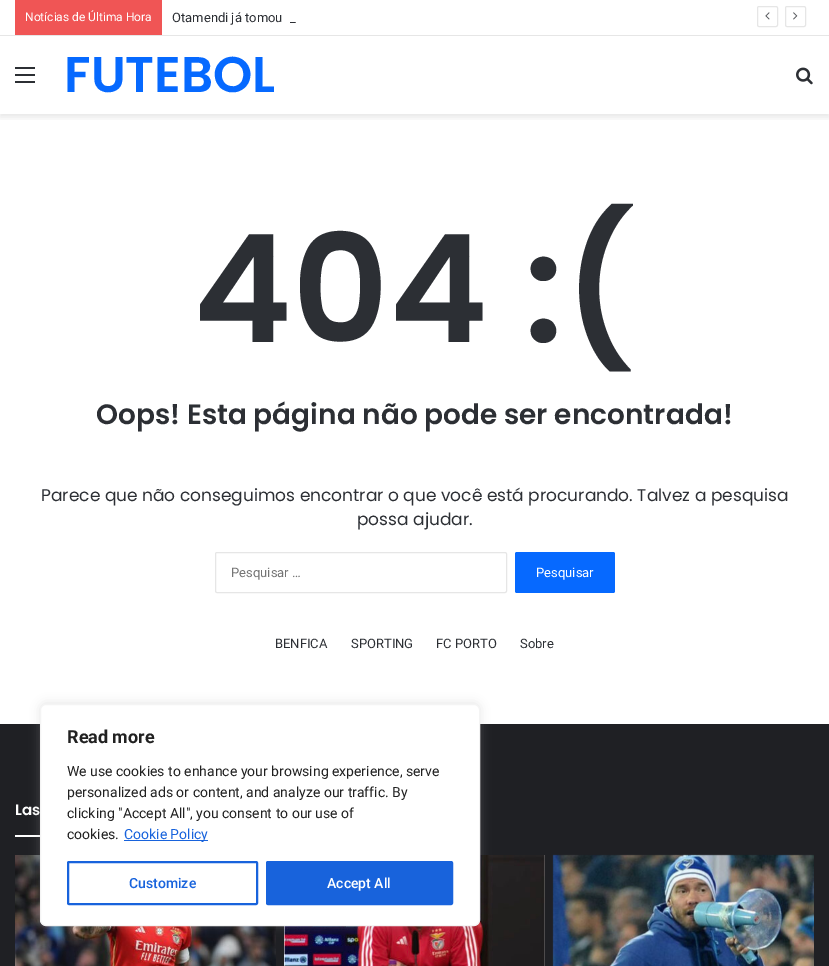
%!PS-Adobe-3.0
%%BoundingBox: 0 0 829 966
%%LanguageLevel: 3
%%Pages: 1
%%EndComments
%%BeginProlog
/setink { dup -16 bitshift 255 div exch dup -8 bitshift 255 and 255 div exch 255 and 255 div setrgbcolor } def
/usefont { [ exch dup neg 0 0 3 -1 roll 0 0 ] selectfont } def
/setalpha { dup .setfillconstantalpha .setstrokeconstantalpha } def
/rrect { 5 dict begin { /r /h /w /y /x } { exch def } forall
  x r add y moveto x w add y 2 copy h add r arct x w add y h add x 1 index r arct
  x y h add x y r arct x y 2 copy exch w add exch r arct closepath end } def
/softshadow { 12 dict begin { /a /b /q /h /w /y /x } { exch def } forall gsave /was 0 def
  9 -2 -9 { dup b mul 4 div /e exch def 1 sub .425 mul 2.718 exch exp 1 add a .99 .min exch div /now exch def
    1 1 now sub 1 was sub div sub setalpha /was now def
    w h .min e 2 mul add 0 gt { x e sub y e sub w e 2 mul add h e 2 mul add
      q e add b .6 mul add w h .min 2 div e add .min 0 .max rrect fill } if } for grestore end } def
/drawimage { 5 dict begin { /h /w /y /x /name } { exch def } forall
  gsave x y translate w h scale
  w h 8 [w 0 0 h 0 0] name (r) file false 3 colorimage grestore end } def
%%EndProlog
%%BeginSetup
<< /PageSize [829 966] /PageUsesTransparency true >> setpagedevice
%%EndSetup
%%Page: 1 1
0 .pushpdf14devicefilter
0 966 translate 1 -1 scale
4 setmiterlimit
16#FFFFFF setink
0 0 829 966 rectfill
gsave
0 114 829 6 rectclip
16#000000 setink
0 39 829 78 0 3.5 0.1 softshadow
grestore
16#E6E6E6 setink
0 35 829 1 rectfill
16#F05555 setink
15 0 147 35 rectfill
/Roboto-Regular 12 usefont
16#FFFFFF setink
25 21 moveto (Notícias de Última Hora) show
/Roboto-Regular 13 usefont
16#2C2F34 setink
172 22 moveto (Otamendi já tomou) show
290 22 moveto (_) show
16#E6E6E6 setink
757.5 6.5 20 20 1.5 rrect stroke
(img1.raw) 765 12 5 8 drawimage
785.5 6.5 20 20 1.5 rrect stroke
(img2.raw) 793 12 5 8 drawimage
[
    [15 74 20 2 16#2C2F34]
    [15 67 20 2 16#2C2F34]
    [15 81 20 2 16#2C2F34]
] { aload pop setink rectfill } forall
/Poppins-SemiBold 50 usefont
16#0669FF setink
64 92 moveto (FUTEBOL) show
(img3.raw) 796 67 17 18 drawimage
/Poppins-SemiBold 150 usefont
16#2C2F34 setink
193 342 moveto (404 :\() show
/Poppins-SemiBold 28 usefont
96 424 moveto (Oops! Esta página não pode ser encontrada!) show
/Poppins-Regular 17 usefont
41 501 moveto (Parece que não conseguimos encontrar o que você está procurando. Talvez a pesquisa) show
357 525 moveto (possa ajudar.) show
16#E6E6E6 setink
215.5 552.5 291 40 1.5 rrect stroke
/Roboto-Regular 13 usefont
16#757575 setink
231 577 moveto (Pesquisar …) show
16#0669FF setink
515 552 100 41 2 rrect fill
16#FFFFFF setink
536 577 moveto (Pesquisar) show
16#2C2F34 setink
[
    [(BENFICA) 275 648]
    [(SPORTING) 351 648]
    [(FC PORTO) 436 648]
    [(Sobre) 520 648]
] { aload pop moveto show } forall
16#1F2024 setink
0 724 829 242 rectfill
/Poppins-SemiBold 15 usefont
16#FFFFFF setink
15 815 moveto (Las) show
15 835 25 2 rectfill
(img4.raw) 15 855 261 111 drawimage
(img5.raw) 284 855 261 111 drawimage
(img6.raw) 552 854 262 112 drawimage
16#ACABAB setink
40 703 440 222 6 5 0.3 softshadow
16#FFFFFF setink
40.5 704.5 439 221 5.5 rrect gsave fill grestore
16#F4F4F4 setink
stroke
/Roboto-Bold 18 usefont
16#212121 setink
67 743 moveto (Read more) show
/Roboto-Regular 14 usefont
[
    [(We use cookies to enhance your browsing experience, serve) 67 776]
    [(personalized ads or content, and analyze our traffic. By) 67 797]
    [(clicking "Accept All", you consent to our use of) 67 818]
    [(cookies.) 67 839]
] { aload pop moveto show } forall
16#1863DC setink
124 840 84 1 rectfill
124 839 moveto (Cookie Policy) show
2 setlinewidth
68 862 189 42 1 rrect stroke
/Roboto-Medium 14 usefont
129 888 moveto (Customize) show
267 862 185 42 1 rrect gsave fill grestore
stroke
16#FFFFFF setink
327 888 moveto (Accept All) show
.poppdf14devicefilter showpage
%%EOF
